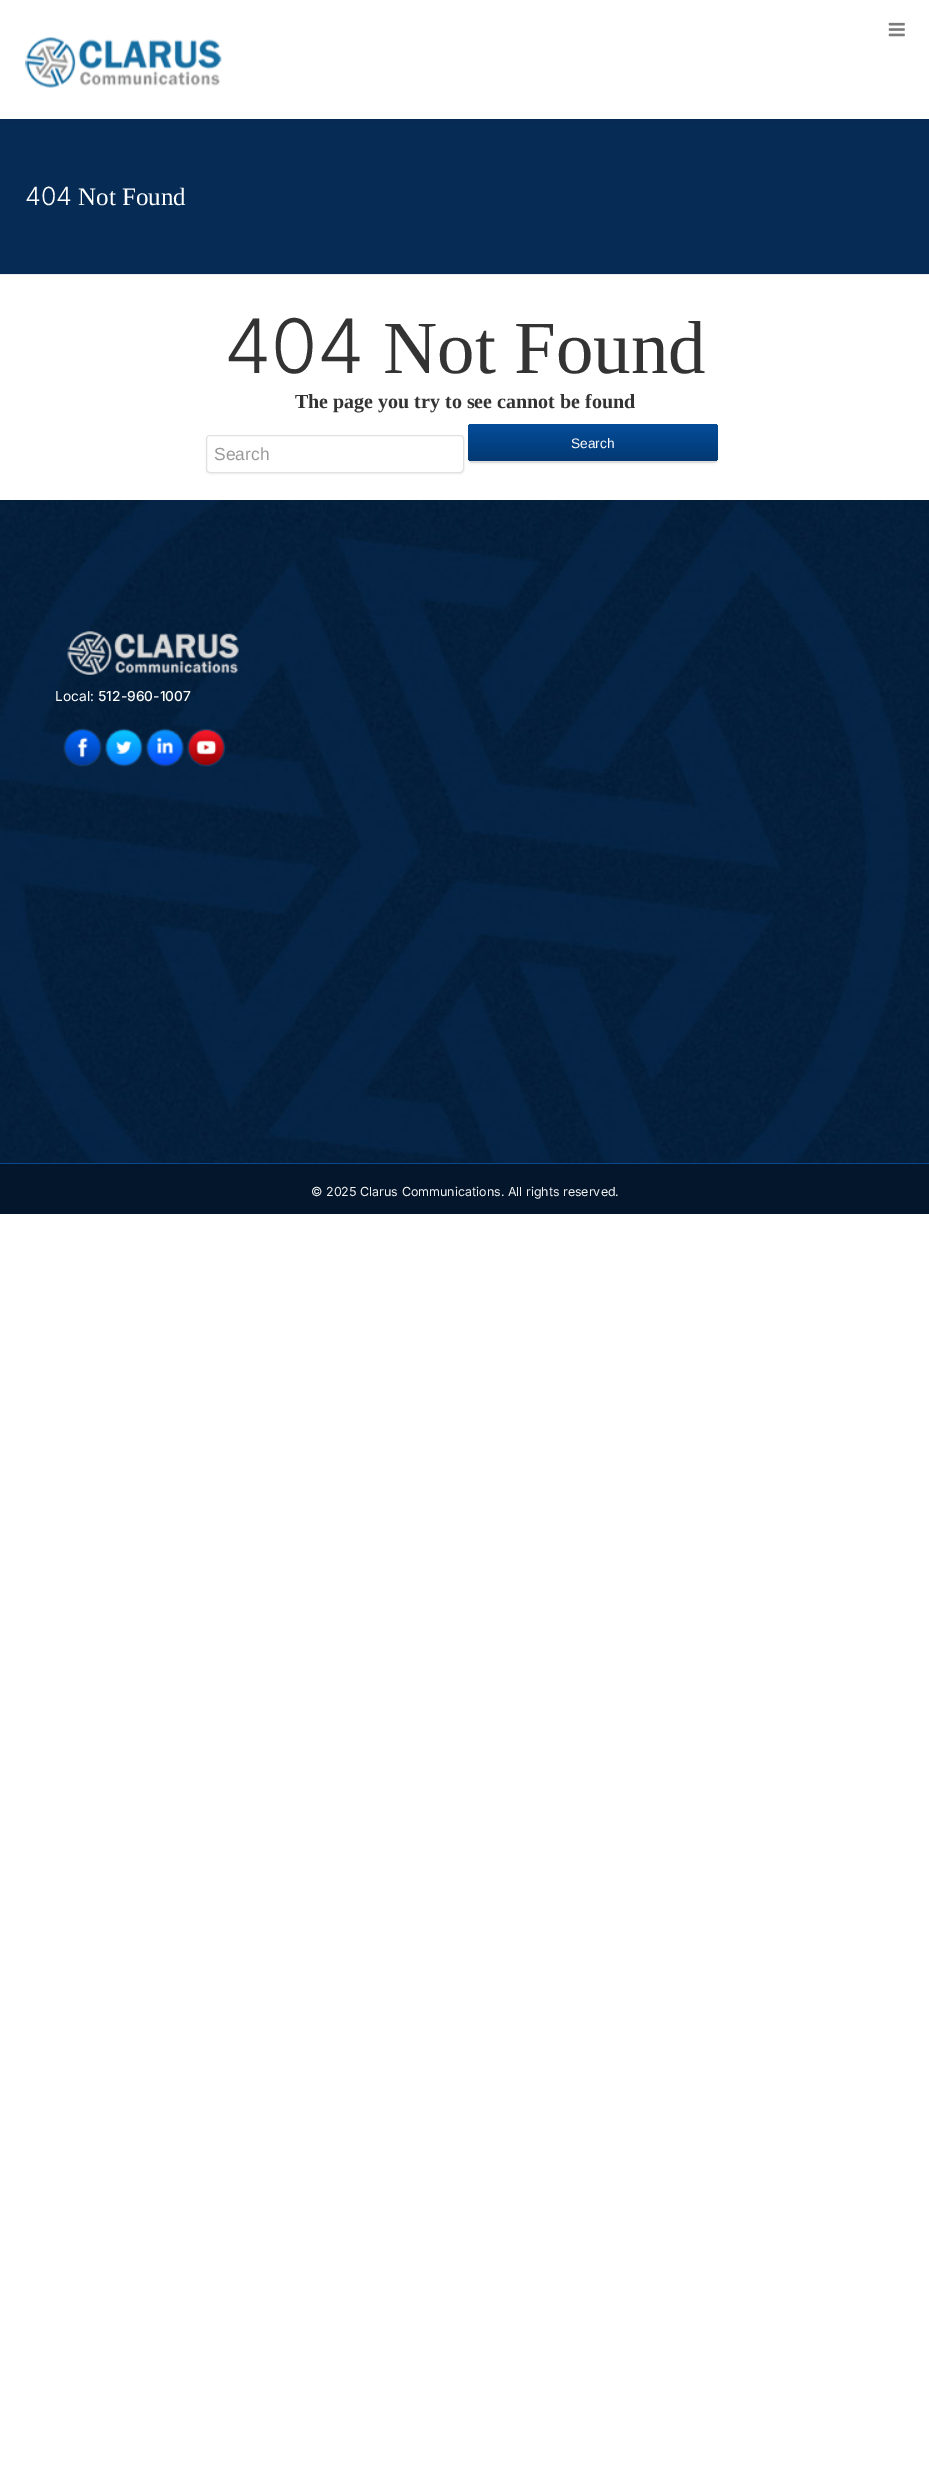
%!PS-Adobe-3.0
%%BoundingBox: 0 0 929 2484
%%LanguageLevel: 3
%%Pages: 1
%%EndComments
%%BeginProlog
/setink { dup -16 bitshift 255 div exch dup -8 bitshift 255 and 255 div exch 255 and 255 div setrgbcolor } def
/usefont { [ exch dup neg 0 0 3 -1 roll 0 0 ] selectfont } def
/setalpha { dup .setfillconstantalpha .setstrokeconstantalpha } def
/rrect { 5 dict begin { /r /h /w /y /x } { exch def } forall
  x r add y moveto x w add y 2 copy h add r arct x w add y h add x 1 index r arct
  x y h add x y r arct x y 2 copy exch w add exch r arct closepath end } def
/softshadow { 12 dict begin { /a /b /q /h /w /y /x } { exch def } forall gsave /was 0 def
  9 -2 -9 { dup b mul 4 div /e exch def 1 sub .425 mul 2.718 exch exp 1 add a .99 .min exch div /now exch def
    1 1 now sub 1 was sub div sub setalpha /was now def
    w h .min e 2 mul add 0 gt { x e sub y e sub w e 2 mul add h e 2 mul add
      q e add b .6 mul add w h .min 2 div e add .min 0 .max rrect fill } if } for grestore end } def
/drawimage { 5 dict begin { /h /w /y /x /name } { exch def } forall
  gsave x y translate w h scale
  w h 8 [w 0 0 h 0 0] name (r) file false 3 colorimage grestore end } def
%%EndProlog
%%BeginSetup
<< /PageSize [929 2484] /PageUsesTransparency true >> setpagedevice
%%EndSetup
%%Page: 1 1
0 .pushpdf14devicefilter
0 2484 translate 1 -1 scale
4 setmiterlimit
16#FFFFFF setink
0 0 929 2484 rectfill
16#062C56 setink
0 119 929 155 rectfill
16#000000 setink
0 3 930 118 0 6 0.1 softshadow
16#FFFFFF setink
0 0 929 119 rectfill
(img1.raw) 888 22 17 15 drawimage
(img2.raw) 25 37 197 51 drawimage
16#EBEBEB setink
0 274 929 1 rectfill
/Inter-Light 25 usefont
16#FFFFFF setink
25 205 moveto (404) show
/LiberationSerif-Regular 25 usefont
78 205 moveto (Not Found) show
/Inter-Light 75 usefont
16#333333 setink
224 373 moveto (404) show
/LiberationSerif-Regular 75 usefont
383 373 moveto (Not Found) show
/LiberationSerif-Bold 20 usefont
295 408 moveto (The page you try to see cannot be found) show
16#EBEBEB setink
468 459 moveto 468 461 470 463 472 463 curveto 714 463 lineto 716 463 718 461 718 459 curveto 718 429 lineto 717 427 lineto 718 458 lineto 718 460 716 461 714 461 curveto 471 461 lineto 470 461 469 461 468 459 curveto closepath fill
16#000000 setink
468 426 250 38 4 1 0.05 softshadow
gsave 468 424 250 37 4 rrect clip newpath
<< /ShadingType 2 /ColorSpace /DeviceRGB /Coords [593 424 593 461] /Extend [true true] /Function << /FunctionType 2 /Domain [0 1] /C0 [0.012 0.298 0.6] /C1 [0.016 0.224 0.451] /N 1 >> >> shfill grestore
/LiberationSans-Regular 13.75 usefont
16#FFFFFF setink
571 448 moveto (Search) show
16#B4B4B4 setink
206 436 258 38 4 1 0.2 softshadow
16#FFFFFF setink
206.5 435.5 257 37 3.5 rrect gsave fill grestore
16#E1E1E1 setink
stroke
/LiberationSans-Regular 17.5 usefont
16#999999 setink
214 460 moveto (Search) show
(img3.raw) 0 500 929 663 drawimage
(img4.raw) 67 631 172 44 drawimage
/Inter-Regular 13.75 usefont
16#FFFFFF setink
55 701 moveto (Local:) show
/Inter-Medium 13.75 usefont
98 701 moveto (512-960-1007) show
(img5.raw) 63 728 39 39 drawimage
(img6.raw) 105 728 38 39 drawimage
(img7.raw) 146 728 38 39 drawimage
(img8.raw) 187 728 39 39 drawimage
16#03162B setink
0 1164 929 50 rectfill
16#0B498C setink
0 1163 929 1 rectfill
/Inter-Regular 12.5 usefont
16#F2F2F2 setink
311 1196 moveto (© 2025 Clarus Communications. All rights reserved.) show
.poppdf14devicefilter showpage
%%EOF
